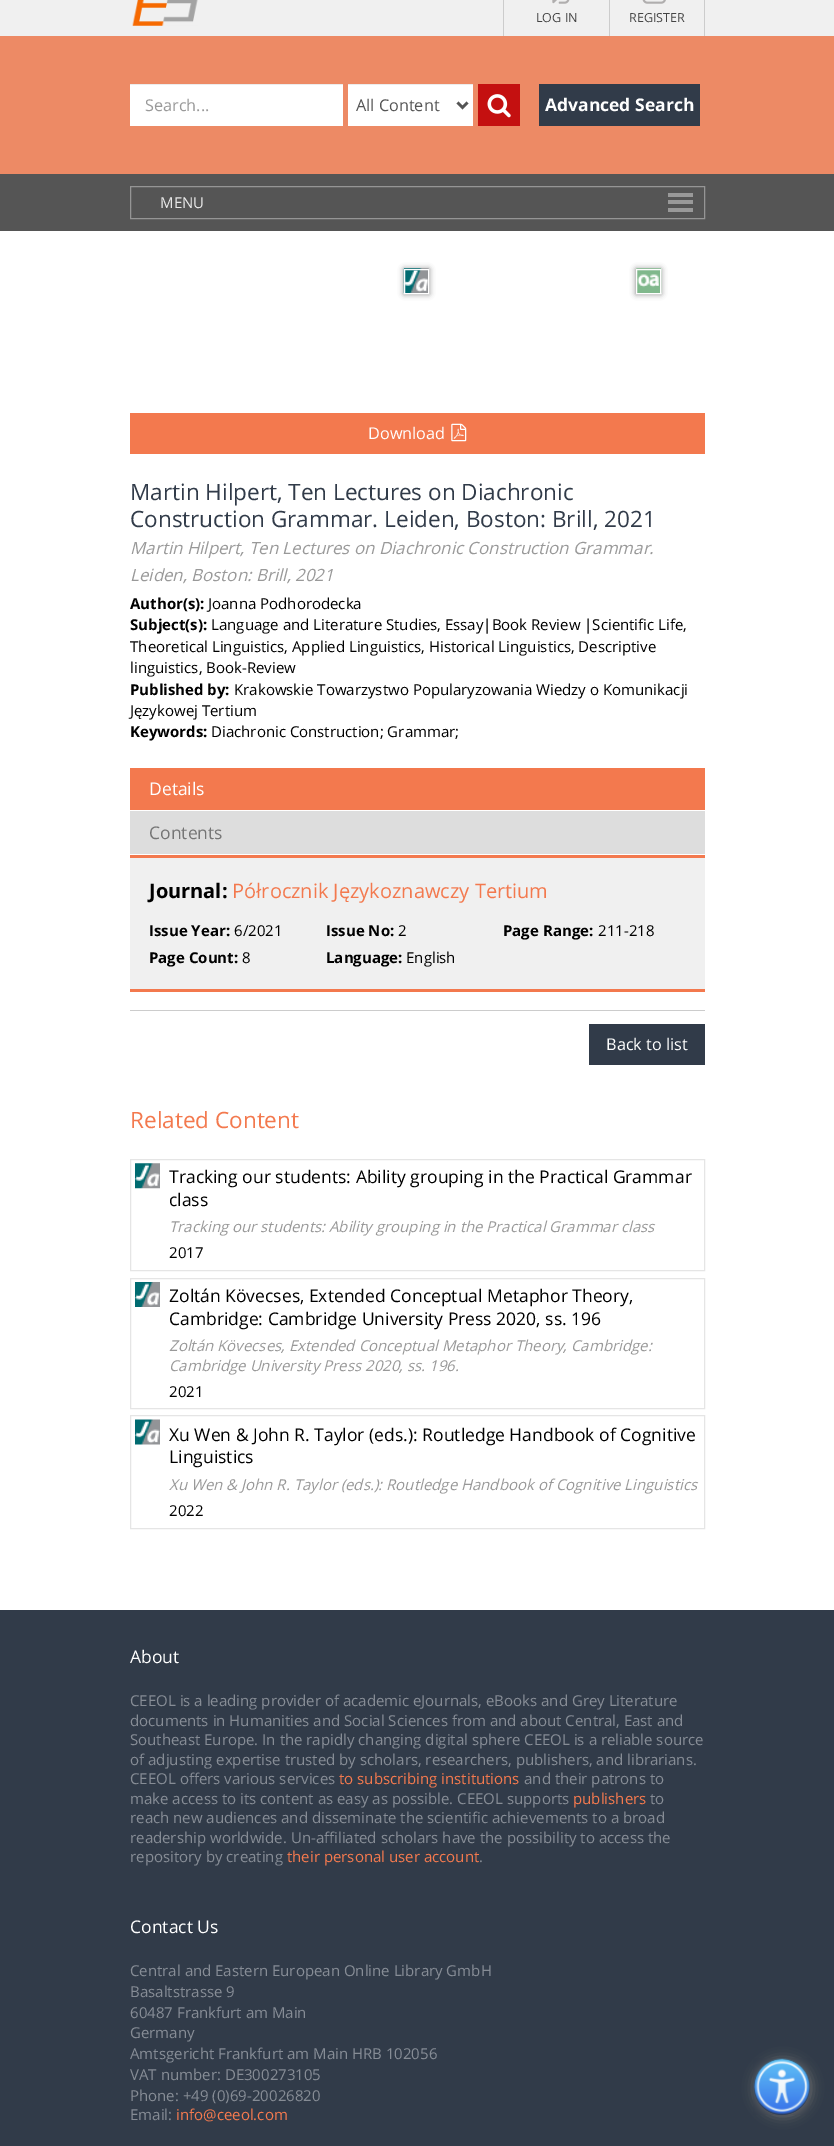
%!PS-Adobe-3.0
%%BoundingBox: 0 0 834 2146
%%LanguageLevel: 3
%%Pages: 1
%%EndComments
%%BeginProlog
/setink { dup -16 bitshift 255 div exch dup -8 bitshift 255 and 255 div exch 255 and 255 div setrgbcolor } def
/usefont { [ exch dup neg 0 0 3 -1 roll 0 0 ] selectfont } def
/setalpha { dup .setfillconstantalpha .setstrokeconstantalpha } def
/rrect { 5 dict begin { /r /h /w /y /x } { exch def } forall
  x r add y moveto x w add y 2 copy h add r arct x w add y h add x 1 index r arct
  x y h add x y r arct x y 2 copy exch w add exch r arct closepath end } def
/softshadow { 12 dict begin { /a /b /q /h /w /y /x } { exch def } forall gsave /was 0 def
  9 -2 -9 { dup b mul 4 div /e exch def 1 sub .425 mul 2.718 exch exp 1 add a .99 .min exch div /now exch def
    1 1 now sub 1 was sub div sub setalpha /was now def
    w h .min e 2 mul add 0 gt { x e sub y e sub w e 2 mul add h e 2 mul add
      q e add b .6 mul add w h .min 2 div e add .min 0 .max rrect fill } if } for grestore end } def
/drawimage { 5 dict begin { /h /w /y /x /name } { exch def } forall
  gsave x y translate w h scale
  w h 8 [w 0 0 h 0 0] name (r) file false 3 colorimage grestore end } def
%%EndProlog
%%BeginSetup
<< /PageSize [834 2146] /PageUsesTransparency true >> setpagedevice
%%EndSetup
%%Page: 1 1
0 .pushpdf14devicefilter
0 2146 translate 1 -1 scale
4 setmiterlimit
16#FFFFFF setink
0 0 834 2146 rectfill
16#F0F0F0 setink
0 0 834 36 rectfill
(img1.raw) 132 0 66 26 drawimage
16#CCCCCC setink
609 0 1 36 rectfill
503 0 1 36 rectfill
(img2.raw) 552 0 18 4 drawimage
/OpenSans-Regular 12.5 usefont
16#444444 setink
536 22 moveto (LOG IN) show
16#CCCCCC setink
704 0 1 36 rectfill
(img3.raw) 642 0 24 4 drawimage
16#444444 setink
629 22 moveto (REGISTER) show
[
    [0 36 834 138 16#ED8A65]
    [130 85 213 41 16#FFFFFF]
    [130 84 213 1 16#ECECEC]
] { aload pop setink rectfill } forall
/OpenSans-Regular 16.25 usefont
16#999999 setink
145 111 moveto (Search...) show
16#FFFFFF setink
348 85 125 41 rectfill
16#ECECEC setink
348 84 125 1 rectfill
16#555555 setink
2.5 setlinewidth
457.5 102.5 moveto 462.5 107.5 lineto 467.5 102.5 lineto stroke
356 111 moveto (All Content) show
16#C41010 setink
478 84 42 42 rectfill
(img4.raw) 487 94 24 24 drawimage
16#313B49 setink
539 84 161 42 rectfill
/OpenSans-Bold 17.5 usefont
16#FFFFFF setink
545 111 moveto (Advanced Search) show
16#555555 setink
0 174 834 57 rectfill
16#959595 setink
1 setlinewidth
130.5 186.5 574 32 rectstroke
/OpenSans-Regular 15 usefont
16#E9E9E9 setink
160 208 moveto (MENU) show
[
    [668 193 25 4 16#999999]
    [668 200 25 4 16#999999]
    [668 208 25 4 16#999999]
] { aload pop setink rectfill } forall
16#000000 setink
404 269 25 25 0 3 0.5 softshadow
(img5.raw) 403 268 26 26 drawimage
16#FFFFFF setink
404.5 269.5 24 24 rectstroke
16#000000 setink
636 269 25 25 0 3 0.5 softshadow
(img6.raw) 636 268 26 26 drawimage
16#FFFFFF setink
636.5 269.5 24 24 rectstroke
16#F3794E setink
130 413 575 41 rectfill
/OpenSans-Regular 16.25 usefont
16#FFFFFF setink
368 439 moveto (Download) show
(img7.raw) 451 423 16 19 drawimage
/OpenSans-Regular 22.5 usefont
16#313B49 setink
130 500 moveto (Martin Hilpert, Ten Lectures on Diachronic) show
130 527 moveto (Construction Grammar. Leiden, Boston: Brill, 2021) show
/OpenSans-Italic 16.9 usefont
16#999999 setink
130 554 moveto (Martin Hilpert, Ten Lectures on Diachronic Construction Grammar.) show
130 581 moveto (Leiden, Boston: Brill, 2021) show
/OpenSans-Bold 15 usefont
16#000000 setink
130 609 moveto (Author\(s\):) show
/OpenSans-Regular 15 usefont
208 609 moveto (Joanna Podhorodecka) show
/OpenSans-Bold 15 usefont
130 630 moveto (Subject\(s\):) show
/OpenSans-Regular 15 usefont
[
    [(Language and Literature Studies, Essay|Book Review |Scientific Life,) 211 630]
    [(Theoretical Linguistics, Applied Linguistics, Historical Linguistics, Descriptive) 130 652]
    [(linguistics, Book-Review) 130 673]
] { aload pop moveto show } forall
/OpenSans-Bold 15 usefont
130 695 moveto (Published by:) show
/OpenSans-Regular 15 usefont
234 695 moveto (Krakowskie Towarzystwo Popularyzowania Wiedzy o Komunikacji) show
130 716 moveto (Językowej Tertium) show
/OpenSans-Bold 15 usefont
130 737 moveto (Keywords:) show
/OpenSans-Regular 15 usefont
211 737 moveto (Diachronic Construction; Grammar;) show
16#F3794E setink
130 768 575 42 rectfill
/OpenSans-Regular 17.5 usefont
16#FFFFFF setink
149 795 moveto (Details) show
16#DDDDDD setink
130 811 575 43 rectfill
16#757575 setink
149 839 moveto (Contents) show
[
    [130 858 575 131 16#F0F0F0]
    [130 855 575 3 16#F3794E]
    [130 989 575 3 16#F3794E]
] { aload pop setink rectfill } forall
/OpenSans-Bold 20 usefont
16#000000 setink
149 898 moveto (Journal:) show
/OpenSans-Regular 20 usefont
16#F3794E setink
232 898 moveto (Półrocznik Językoznawczy Tertium) show
/OpenSans-Bold 15 usefont
16#000000 setink
149 936 moveto (Issue Year:) show
/OpenSans-Regular 15 usefont
234 936 moveto (6/2021) show
/OpenSans-Bold 15 usefont
326 936 moveto (Issue No:) show
/OpenSans-Regular 15 usefont
398 936 moveto (2) show
/OpenSans-Bold 15 usefont
503 936 moveto (Page Range:) show
/OpenSans-Regular 15 usefont
598 936 moveto (211-218) show
/OpenSans-Bold 15 usefont
149 963 moveto (Page Count:) show
/OpenSans-Regular 15 usefont
242 963 moveto (8) show
/OpenSans-Bold 15 usefont
326 963 moveto (Language:) show
/OpenSans-Regular 15 usefont
406 963 moveto (English) show
16#CCCCCC setink
130 1010 575 1 rectfill
16#313B49 setink
589 1024 116 41 rectfill
/OpenSans-Regular 16.25 usefont
16#FFFFFF setink
606 1050 moveto (Back to list) show
/OpenSans-Regular 22.5 usefont
16#F3794E setink
130 1128 moveto (Related Content) show
16#E5E5E5 setink
130.5 1159.5 574 111 rectstroke
(img8.raw) 135 1163 25 26 drawimage
/OpenSans-Regular 17.5 usefont
16#000000 setink
169 1183 moveto (Tracking our students: Ability grouping in the Practical Grammar) show
169 1206 moveto (class) show
/OpenSans-Italic 15 usefont
16#999999 setink
169 1232 moveto (Tracking our students: Ability grouping in the Practical Grammar class) show
/OpenSans-Regular 15 usefont
16#000000 setink
169 1258 moveto (2017) show
16#E5E5E5 setink
130.5 1278.5 574 130 rectstroke
(img9.raw) 135 1282 25 25 drawimage
/OpenSans-Regular 17.5 usefont
16#000000 setink
169 1302 moveto (Zoltán Kövecses, Extended Conceptual Metaphor Theory,) show
169 1325 moveto (Cambridge: Cambridge University Press 2020, ss. 196) show
/OpenSans-Italic 15 usefont
16#999999 setink
169 1351 moveto (Zoltán Kövecses, Extended Conceptual Metaphor Theory, Cambridge:) show
169 1371 moveto (Cambridge University Press 2020, ss. 196.) show
/OpenSans-Regular 15 usefont
16#000000 setink
169 1397 moveto (2021) show
16#E5E5E5 setink
130.5 1415.5 574 113 rectstroke
(img10.raw) 135 1419 25 26 drawimage
/OpenSans-Regular 17.5 usefont
16#000000 setink
169 1441 moveto (Xu Wen & John R. Taylor \(eds.\): Routledge Handbook of Cognitive) show
169 1463 moveto (Linguistics) show
/OpenSans-Italic 15 usefont
16#999999 setink
169 1490 moveto (Xu Wen & John R. Taylor \(eds.\): Routledge Handbook of Cognitive Linguistics) show
/OpenSans-Regular 15 usefont
16#000000 setink
169 1516 moveto (2022) show
16#313B49 setink
0 1610 834 536 rectfill
/OpenSans-Regular 17.5 usefont
16#FFFFFF setink
130 1663 moveto (About) show
/OpenSans-Regular 15 usefont
16#868C95 setink
[
    [(CEEOL is a leading provider of academic eJournals, eBooks and Grey Literature) 130 1706]
    [(documents in Humanities and Social Sciences from and about Central, East and) 130 1726]
    [(Southeast Europe. In the rapidly changing digital sphere CEEOL is a reliable source) 130 1745]
    [(of adjusting expertise trusted by scholars, researchers, publishers, and librarians.) 130 1765]
    [(CEEOL offers various services) 130 1784]
] { aload pop moveto show } forall
16#F3794E setink
339 1784 moveto (to subscribing institutions) show
16#868C95 setink
524 1784 moveto (and their patrons to) show
130 1804 moveto (make access to its content as easy as possible. CEEOL supports) show
16#F3794E setink
573 1804 moveto (publishers) show
16#868C95 setink
[
    [(to) 650 1804]
    [(reach new audiences and disseminate the scientific achievements to a broad) 130 1823]
    [(readership worldwide. Un-affiliated scholars have the possibility to access the) 130 1843]
    [(repository by creating) 130 1862]
] { aload pop moveto show } forall
16#F3794E setink
287 1862 moveto (their personal user account) show
16#868C95 setink
479 1862 moveto (.) show
/OpenSans-Regular 17.5 usefont
16#FFFFFF setink
130 1933 moveto (Contact Us) show
/OpenSans-Regular 15 usefont
16#868C95 setink
[
    [(Central and Eastern European Online Library GmbH) 130 1976]
    [(Basaltstrasse 9) 130 1997]
    [(60487 Frankfurt am Main) 130 2018]
    [(Germany) 130 2038]
    [(Amtsgericht Frankfurt am Main HRB 102056) 130 2059]
    [(VAT number: DE300273105) 130 2080]
    [(Phone: +49 \(0\)69-20026820) 130 2101]
    [(Email:) 130 2120]
] { aload pop moveto show } forall
16#F3794E setink
176 2120 moveto (info@ceeol.com) show
gsave
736 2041 moveto 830 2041 lineto 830 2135 lineto 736 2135 lineto closepath 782 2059 moveto 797.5 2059 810 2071.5 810 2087 curveto 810 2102.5 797.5 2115 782 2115 curveto 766.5 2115 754 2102.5 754 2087 curveto 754 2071.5 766.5 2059 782 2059 curveto closepath eoclip newpath
16#717070 setink
755 2060 56 56 28 6 1 softshadow
grestore
(img11.raw) 753 2058 57 57 drawimage
.poppdf14devicefilter showpage
%%EOF
